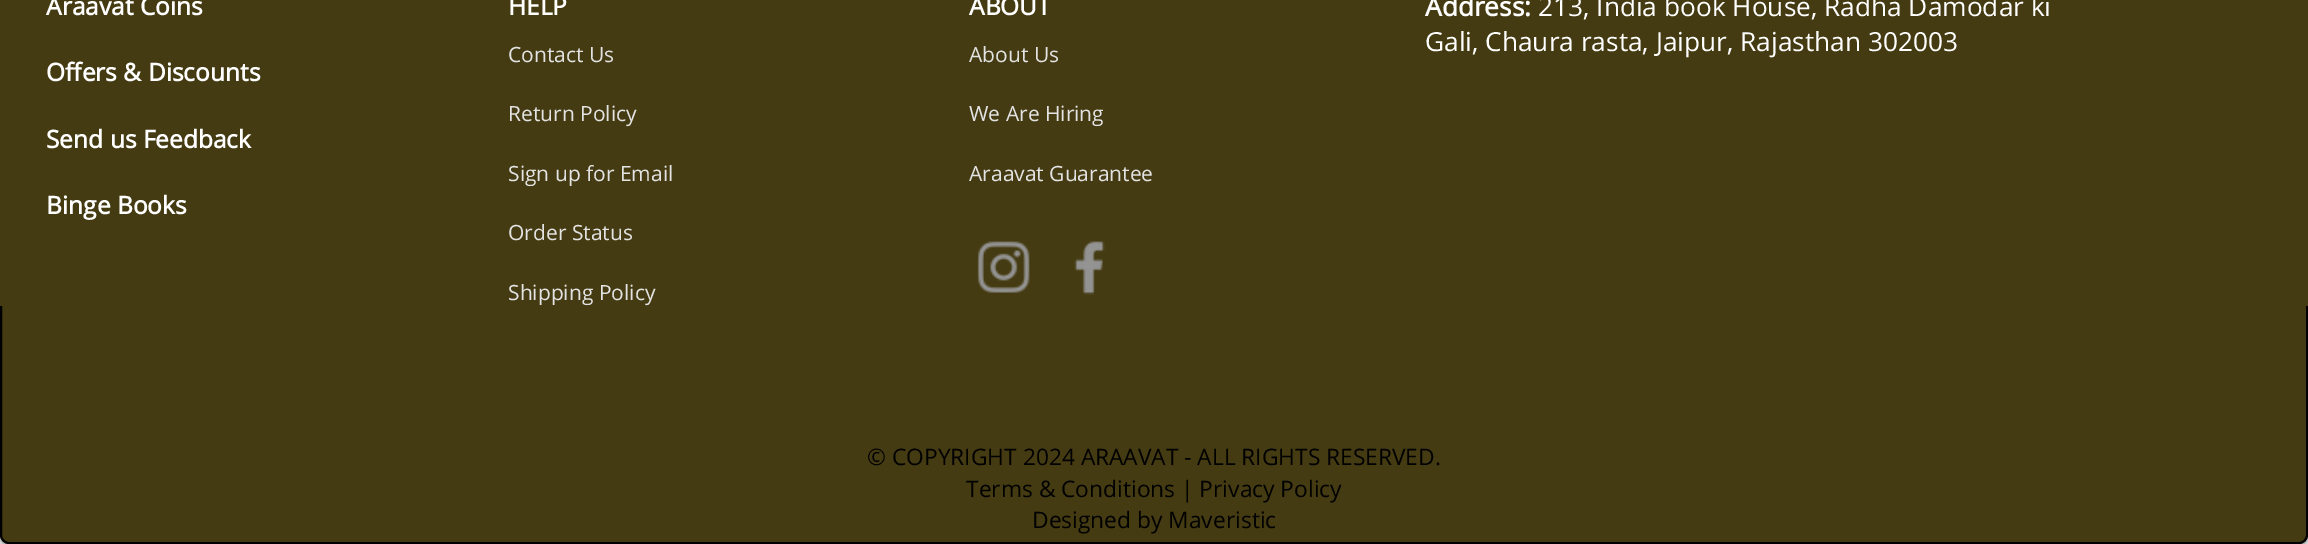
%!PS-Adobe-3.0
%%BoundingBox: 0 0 2308 544
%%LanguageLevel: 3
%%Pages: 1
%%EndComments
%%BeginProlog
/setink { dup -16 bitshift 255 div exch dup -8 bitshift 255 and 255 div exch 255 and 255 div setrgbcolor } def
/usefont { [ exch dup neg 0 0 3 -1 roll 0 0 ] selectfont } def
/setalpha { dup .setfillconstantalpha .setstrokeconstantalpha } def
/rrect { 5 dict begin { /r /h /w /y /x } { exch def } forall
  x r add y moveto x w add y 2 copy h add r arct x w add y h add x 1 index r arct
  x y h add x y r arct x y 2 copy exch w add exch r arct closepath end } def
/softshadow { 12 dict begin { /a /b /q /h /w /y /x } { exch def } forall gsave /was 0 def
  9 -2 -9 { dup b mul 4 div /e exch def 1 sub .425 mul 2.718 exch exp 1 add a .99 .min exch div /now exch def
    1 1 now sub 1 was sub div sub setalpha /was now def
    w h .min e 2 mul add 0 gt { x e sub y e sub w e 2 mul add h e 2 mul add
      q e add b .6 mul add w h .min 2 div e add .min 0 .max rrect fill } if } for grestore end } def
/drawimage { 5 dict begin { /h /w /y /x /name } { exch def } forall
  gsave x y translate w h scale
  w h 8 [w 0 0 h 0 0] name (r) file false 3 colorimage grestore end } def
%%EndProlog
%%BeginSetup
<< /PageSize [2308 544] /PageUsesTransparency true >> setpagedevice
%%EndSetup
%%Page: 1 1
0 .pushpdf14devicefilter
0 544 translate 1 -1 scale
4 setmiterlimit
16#FFFFFF setink
0 0 2308 544 rectfill
16#000000 setink
0 -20 2308 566 9 3.5 0.6 softshadow
16#453B12 setink
1 -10 2306 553 8 rrect gsave fill grestore
16#000000 setink
2 setlinewidth
stroke
16#453B12 setink
0 0 2308 306 rectfill
/OpenSans-Bold 24.5 usefont
16#FFFFFF setink
[
    [(Araavat Coins) 46 15]
    [(Offers & Discounts) 46 81]
    [(Send us Feedback) 46 148]
    [(Binge Books) 46 214]
    [(HELP) 508 15]
] { aload pop moveto show } forall
/OpenSans-Regular 21 usefont
16#E3E3E3 setink
[
    [(Contact Us) 508 62]
    [(Return Policy) 508 121]
    [(Sign up for Email) 508 181]
    [(Order Status) 508 240]
    [(Shipping Policy) 508 300]
] { aload pop moveto show } forall
/OpenSans-Bold 24.5 usefont
16#FFFFFF setink
969 15 moveto (ABOUT) show
/OpenSans-Regular 21 usefont
16#E3E3E3 setink
[
    [(About Us) 969 62]
    [(We Are Hiring) 969 121]
    [(Araavat Guarantee) 969 181]
] { aload pop moveto show } forall
/OpenSans-Bold 26.25 usefont
16#FFFFFF setink
1425 16 moveto (Address:) show
/OpenSans-Regular 26.25 usefont
1538 16 moveto (213, India book House, Radha Damodar ki) show
1425 51 moveto (Gali, Chaura rasta, Jaipur, Rajasthan 302003) show
(img1.raw) 977 241 53 52 drawimage
(img2.raw) 1074 241 31 54 drawimage
/OpenSans-Regular 22.75 usefont
16#000000 setink
[
    [(© COPYRIGHT 2024 ARAAVAT - ALL RIGHTS RESERVED.) 867 465]
    [(Terms & Conditions | Privacy Policy) 966 497]
    [(Designed by Maveristic) 1032 528]
] { aload pop moveto show } forall
.poppdf14devicefilter showpage
%%EOF
